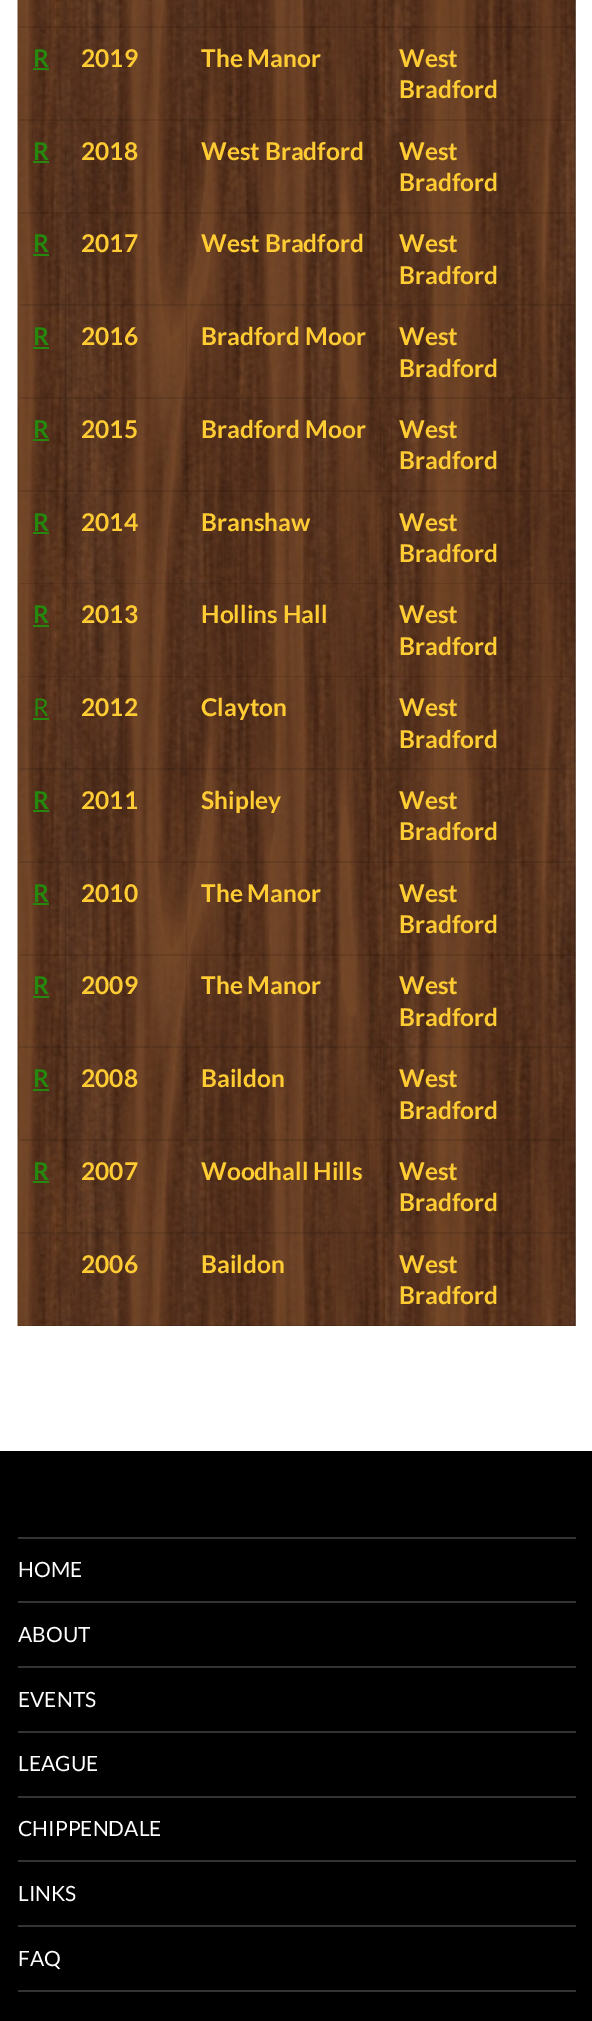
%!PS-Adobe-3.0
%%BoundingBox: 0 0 592 2021
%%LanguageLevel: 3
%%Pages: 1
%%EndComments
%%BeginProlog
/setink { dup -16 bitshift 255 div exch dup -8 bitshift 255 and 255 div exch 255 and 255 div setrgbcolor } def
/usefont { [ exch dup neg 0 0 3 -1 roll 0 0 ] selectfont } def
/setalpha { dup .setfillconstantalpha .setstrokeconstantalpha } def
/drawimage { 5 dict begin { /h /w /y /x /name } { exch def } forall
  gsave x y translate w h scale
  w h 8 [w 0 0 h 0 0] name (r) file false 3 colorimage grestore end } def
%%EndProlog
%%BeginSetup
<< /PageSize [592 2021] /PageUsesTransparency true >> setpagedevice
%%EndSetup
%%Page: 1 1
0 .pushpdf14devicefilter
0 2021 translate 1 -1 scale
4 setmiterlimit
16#FFFFFF setink
0 0 592 2021 rectfill
(img1.raw) 17 0 559 1326 drawimage
0.1 setalpha
16#000000 setink
18 1326 moveto 18 -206 lineto 19 -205 lineto 19 1326 lineto closepath fill
66 -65 moveto 66 28 lineto 65 26 lineto 65 -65 lineto closepath fill
66 28 moveto 19 28 lineto 19 26 lineto 65 26 lineto closepath fill
187 -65 moveto 187 28 lineto 186 26 lineto 186 -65 lineto closepath fill
187 28 moveto 66 28 lineto 66 26 lineto 186 26 lineto closepath fill
385 -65 moveto 385 28 lineto 383 26 lineto 383 -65 lineto closepath fill
385 28 moveto 187 28 lineto 187 26 lineto 383 26 lineto closepath fill
576 -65 moveto 576 28 lineto 574 26 lineto 574 -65 lineto closepath fill
576 28 moveto 385 28 lineto 385 26 lineto 574 26 lineto closepath fill
66 28 moveto 66 121 lineto 65 119 lineto 65 28 lineto closepath fill
66 121 moveto 19 121 lineto 19 119 lineto 65 119 lineto closepath fill
/Lato-Bold 24.5 usefont
1 setalpha
16#24890D setink
33 67 moveto (R) show
33 68 16 2 rectfill
0.1 setalpha
16#000000 setink
187 28 moveto 187 121 lineto 186 119 lineto 186 28 lineto closepath fill
187 121 moveto 66 121 lineto 66 119 lineto 186 119 lineto closepath fill
1 setalpha
16#FFCC33 setink
81 67 moveto (2019) show
0.1 setalpha
16#000000 setink
385 28 moveto 385 121 lineto 383 119 lineto 383 28 lineto closepath fill
385 121 moveto 187 121 lineto 187 119 lineto 383 119 lineto closepath fill
1 setalpha
16#FFCC33 setink
201 67 moveto (The Manor) show
0.1 setalpha
16#000000 setink
576 28 moveto 576 121 lineto 574 119 lineto 574 28 lineto closepath fill
576 121 moveto 385 121 lineto 385 119 lineto 574 119 lineto closepath fill
1 setalpha
16#FFCC33 setink
399 67 moveto (West) show
399 98 moveto (Bradford) show
0.1 setalpha
16#000000 setink
66 121 moveto 66 214 lineto 65 212 lineto 65 121 lineto closepath fill
66 214 moveto 19 214 lineto 19 212 lineto 65 212 lineto closepath fill
1 setalpha
16#24890D setink
33 160 moveto (R) show
33 161 16 2 rectfill
0.1 setalpha
16#000000 setink
187 121 moveto 187 214 lineto 186 212 lineto 186 121 lineto closepath fill
187 214 moveto 66 214 lineto 66 212 lineto 186 212 lineto closepath fill
1 setalpha
16#FFCC33 setink
81 160 moveto (2018) show
0.1 setalpha
16#000000 setink
385 121 moveto 385 214 lineto 383 212 lineto 383 121 lineto closepath fill
385 214 moveto 187 214 lineto 187 212 lineto 383 212 lineto closepath fill
1 setalpha
16#FFCC33 setink
201 160 moveto (West Bradford) show
0.1 setalpha
16#000000 setink
576 121 moveto 576 214 lineto 574 212 lineto 574 121 lineto closepath fill
576 214 moveto 385 214 lineto 385 212 lineto 574 212 lineto closepath fill
1 setalpha
16#FFCC33 setink
399 160 moveto (West) show
399 191 moveto (Bradford) show
0.1 setalpha
16#000000 setink
66 214 moveto 66 306 lineto 65 304 lineto 65 214 lineto closepath fill
66 306 moveto 19 306 lineto 19 304 lineto 65 304 lineto closepath fill
1 setalpha
16#24890D setink
33 252 moveto (R) show
33 254 16 2 rectfill
0.1 setalpha
16#000000 setink
187 214 moveto 187 306 lineto 186 304 lineto 186 214 lineto closepath fill
187 306 moveto 66 306 lineto 66 304 lineto 186 304 lineto closepath fill
1 setalpha
16#FFCC33 setink
81 252 moveto (2017) show
0.1 setalpha
16#000000 setink
385 214 moveto 385 306 lineto 383 304 lineto 383 214 lineto closepath fill
385 306 moveto 187 306 lineto 187 304 lineto 383 304 lineto closepath fill
1 setalpha
16#FFCC33 setink
201 252 moveto (West Bradford) show
0.1 setalpha
16#000000 setink
576 214 moveto 576 306 lineto 574 304 lineto 574 214 lineto closepath fill
576 306 moveto 385 306 lineto 385 304 lineto 574 304 lineto closepath fill
1 setalpha
16#FFCC33 setink
399 252 moveto (West) show
399 284 moveto (Bradford) show
0.1 setalpha
16#000000 setink
66 306 moveto 66 399 lineto 65 397 lineto 65 306 lineto closepath fill
66 399 moveto 19 399 lineto 19 397 lineto 65 397 lineto closepath fill
1 setalpha
16#24890D setink
33 345 moveto (R) show
33 347 16 2 rectfill
0.1 setalpha
16#000000 setink
187 306 moveto 187 399 lineto 186 397 lineto 186 306 lineto closepath fill
187 399 moveto 66 399 lineto 66 397 lineto 186 397 lineto closepath fill
1 setalpha
16#FFCC33 setink
81 345 moveto (2016) show
0.1 setalpha
16#000000 setink
385 306 moveto 385 399 lineto 383 397 lineto 383 306 lineto closepath fill
385 399 moveto 187 399 lineto 187 397 lineto 383 397 lineto closepath fill
1 setalpha
16#FFCC33 setink
201 345 moveto (Bradford Moor) show
0.1 setalpha
16#000000 setink
576 306 moveto 576 399 lineto 574 397 lineto 574 306 lineto closepath fill
576 399 moveto 385 399 lineto 385 397 lineto 574 397 lineto closepath fill
1 setalpha
16#FFCC33 setink
399 345 moveto (West) show
399 377 moveto (Bradford) show
0.1 setalpha
16#000000 setink
66 399 moveto 66 492 lineto 65 490 lineto 65 399 lineto closepath fill
66 492 moveto 19 492 lineto 19 490 lineto 65 490 lineto closepath fill
1 setalpha
16#24890D setink
33 438 moveto (R) show
33 439 16 2 rectfill
0.1 setalpha
16#000000 setink
187 399 moveto 187 492 lineto 186 490 lineto 186 399 lineto closepath fill
187 492 moveto 66 492 lineto 66 490 lineto 186 490 lineto closepath fill
1 setalpha
16#FFCC33 setink
81 438 moveto (2015) show
0.1 setalpha
16#000000 setink
385 399 moveto 385 492 lineto 383 490 lineto 383 399 lineto closepath fill
385 492 moveto 187 492 lineto 187 490 lineto 383 490 lineto closepath fill
1 setalpha
16#FFCC33 setink
201 438 moveto (Bradford Moor) show
0.1 setalpha
16#000000 setink
576 399 moveto 576 492 lineto 574 490 lineto 574 399 lineto closepath fill
576 492 moveto 385 492 lineto 385 490 lineto 574 490 lineto closepath fill
1 setalpha
16#FFCC33 setink
399 438 moveto (West) show
399 469 moveto (Bradford) show
0.1 setalpha
16#000000 setink
66 492 moveto 66 584 lineto 65 583 lineto 65 492 lineto closepath fill
66 584 moveto 19 584 lineto 19 583 lineto 65 583 lineto closepath fill
1 setalpha
16#24890D setink
33 531 moveto (R) show
33 532 16 2 rectfill
0.1 setalpha
16#000000 setink
187 492 moveto 187 584 lineto 186 583 lineto 186 492 lineto closepath fill
187 584 moveto 66 584 lineto 66 583 lineto 186 583 lineto closepath fill
1 setalpha
16#FFCC33 setink
81 531 moveto (2014) show
0.1 setalpha
16#000000 setink
385 492 moveto 385 584 lineto 383 583 lineto 383 492 lineto closepath fill
385 584 moveto 187 584 lineto 187 583 lineto 383 583 lineto closepath fill
1 setalpha
16#FFCC33 setink
201 531 moveto (Branshaw) show
0.1 setalpha
16#000000 setink
576 492 moveto 576 584 lineto 574 583 lineto 574 492 lineto closepath fill
576 584 moveto 385 584 lineto 385 583 lineto 574 583 lineto closepath fill
1 setalpha
16#FFCC33 setink
399 531 moveto (West) show
399 562 moveto (Bradford) show
0.1 setalpha
16#000000 setink
66 584 moveto 66 677 lineto 65 676 lineto 65 584 lineto closepath fill
66 677 moveto 19 677 lineto 19 676 lineto 65 676 lineto closepath fill
1 setalpha
16#24890D setink
33 623 moveto (R) show
33 625 16 2 rectfill
0.1 setalpha
16#000000 setink
187 584 moveto 187 677 lineto 186 676 lineto 186 584 lineto closepath fill
187 677 moveto 66 677 lineto 66 676 lineto 186 676 lineto closepath fill
1 setalpha
16#FFCC33 setink
81 623 moveto (2013) show
0.1 setalpha
16#000000 setink
385 584 moveto 385 677 lineto 383 676 lineto 383 584 lineto closepath fill
385 677 moveto 187 677 lineto 187 676 lineto 383 676 lineto closepath fill
1 setalpha
16#FFCC33 setink
201 623 moveto (Hollins Hall) show
0.1 setalpha
16#000000 setink
576 584 moveto 576 677 lineto 574 676 lineto 574 584 lineto closepath fill
576 677 moveto 385 677 lineto 385 676 lineto 574 676 lineto closepath fill
1 setalpha
16#FFCC33 setink
399 623 moveto (West) show
399 655 moveto (Bradford) show
0.1 setalpha
16#000000 setink
66 677 moveto 66 770 lineto 65 768 lineto 65 677 lineto closepath fill
66 770 moveto 19 770 lineto 19 768 lineto 65 768 lineto closepath fill
/Lato-Regular 24.5 usefont
1 setalpha
16#24890D setink
33 716 moveto (R) show
33 718 16 2 rectfill
0.1 setalpha
16#000000 setink
187 677 moveto 187 770 lineto 186 768 lineto 186 677 lineto closepath fill
187 770 moveto 66 770 lineto 66 768 lineto 186 768 lineto closepath fill
/Lato-Bold 24.5 usefont
1 setalpha
16#FFCC33 setink
81 716 moveto (2012) show
0.1 setalpha
16#000000 setink
385 677 moveto 385 770 lineto 383 768 lineto 383 677 lineto closepath fill
385 770 moveto 187 770 lineto 187 768 lineto 383 768 lineto closepath fill
1 setalpha
16#FFCC33 setink
201 716 moveto (Clayton) show
0.1 setalpha
16#000000 setink
576 677 moveto 576 770 lineto 574 768 lineto 574 677 lineto closepath fill
576 770 moveto 385 770 lineto 385 768 lineto 574 768 lineto closepath fill
1 setalpha
16#FFCC33 setink
399 716 moveto (West) show
399 748 moveto (Bradford) show
0.1 setalpha
16#000000 setink
66 770 moveto 66 863 lineto 65 861 lineto 65 770 lineto closepath fill
66 863 moveto 19 863 lineto 19 861 lineto 65 861 lineto closepath fill
1 setalpha
16#24890D setink
33 809 moveto (R) show
33 810 16 2 rectfill
0.1 setalpha
16#000000 setink
187 770 moveto 187 863 lineto 186 861 lineto 186 770 lineto closepath fill
187 863 moveto 66 863 lineto 66 861 lineto 186 861 lineto closepath fill
1 setalpha
16#FFCC33 setink
81 809 moveto (2011) show
0.1 setalpha
16#000000 setink
385 770 moveto 385 863 lineto 383 861 lineto 383 770 lineto closepath fill
385 863 moveto 187 863 lineto 187 861 lineto 383 861 lineto closepath fill
1 setalpha
16#FFCC33 setink
201 809 moveto (Shipley) show
0.1 setalpha
16#000000 setink
576 770 moveto 576 863 lineto 574 861 lineto 574 770 lineto closepath fill
576 863 moveto 385 863 lineto 385 861 lineto 574 861 lineto closepath fill
1 setalpha
16#FFCC33 setink
399 809 moveto (West) show
399 840 moveto (Bradford) show
0.1 setalpha
16#000000 setink
66 863 moveto 66 956 lineto 65 954 lineto 65 863 lineto closepath fill
66 956 moveto 19 956 lineto 19 954 lineto 65 954 lineto closepath fill
1 setalpha
16#24890D setink
33 902 moveto (R) show
33 903 16 2 rectfill
0.1 setalpha
16#000000 setink
187 863 moveto 187 956 lineto 186 954 lineto 186 863 lineto closepath fill
187 956 moveto 66 956 lineto 66 954 lineto 186 954 lineto closepath fill
1 setalpha
16#FFCC33 setink
81 902 moveto (2010) show
0.1 setalpha
16#000000 setink
385 863 moveto 385 956 lineto 383 954 lineto 383 863 lineto closepath fill
385 956 moveto 187 956 lineto 187 954 lineto 383 954 lineto closepath fill
1 setalpha
16#FFCC33 setink
201 902 moveto (The Manor) show
0.1 setalpha
16#000000 setink
576 863 moveto 576 956 lineto 574 954 lineto 574 863 lineto closepath fill
576 956 moveto 385 956 lineto 385 954 lineto 574 954 lineto closepath fill
1 setalpha
16#FFCC33 setink
399 902 moveto (West) show
399 933 moveto (Bradford) show
0.1 setalpha
16#000000 setink
66 956 moveto 66 1048 lineto 65 1046 lineto 65 956 lineto closepath fill
66 1048 moveto 19 1048 lineto 19 1046 lineto 65 1046 lineto closepath fill
1 setalpha
16#24890D setink
33 994 moveto (R) show
33 996 16 2 rectfill
0.1 setalpha
16#000000 setink
187 956 moveto 187 1048 lineto 186 1046 lineto 186 956 lineto closepath fill
187 1048 moveto 66 1048 lineto 66 1046 lineto 186 1046 lineto closepath fill
1 setalpha
16#FFCC33 setink
81 994 moveto (2009) show
0.1 setalpha
16#000000 setink
385 956 moveto 385 1048 lineto 383 1046 lineto 383 956 lineto closepath fill
385 1048 moveto 187 1048 lineto 187 1046 lineto 383 1046 lineto closepath fill
1 setalpha
16#FFCC33 setink
201 994 moveto (The Manor) show
0.1 setalpha
16#000000 setink
576 956 moveto 576 1048 lineto 574 1046 lineto 574 956 lineto closepath fill
576 1048 moveto 385 1048 lineto 385 1046 lineto 574 1046 lineto closepath fill
1 setalpha
16#FFCC33 setink
399 994 moveto (West) show
399 1026 moveto (Bradford) show
0.1 setalpha
16#000000 setink
66 1048 moveto 66 1141 lineto 65 1139 lineto 65 1048 lineto closepath fill
66 1141 moveto 19 1141 lineto 19 1139 lineto 65 1139 lineto closepath fill
1 setalpha
16#24890D setink
33 1087 moveto (R) show
33 1089 16 2 rectfill
0.1 setalpha
16#000000 setink
187 1048 moveto 187 1141 lineto 186 1139 lineto 186 1048 lineto closepath fill
187 1141 moveto 66 1141 lineto 66 1139 lineto 186 1139 lineto closepath fill
1 setalpha
16#FFCC33 setink
81 1087 moveto (2008) show
0.1 setalpha
16#000000 setink
385 1048 moveto 385 1141 lineto 383 1139 lineto 383 1048 lineto closepath fill
385 1141 moveto 187 1141 lineto 187 1139 lineto 383 1139 lineto closepath fill
1 setalpha
16#FFCC33 setink
201 1087 moveto (Baildon) show
0.1 setalpha
16#000000 setink
576 1048 moveto 576 1141 lineto 574 1139 lineto 574 1048 lineto closepath fill
576 1141 moveto 385 1141 lineto 385 1139 lineto 574 1139 lineto closepath fill
1 setalpha
16#FFCC33 setink
399 1087 moveto (West) show
399 1119 moveto (Bradford) show
0.1 setalpha
16#000000 setink
66 1141 moveto 66 1234 lineto 65 1232 lineto 65 1141 lineto closepath fill
66 1234 moveto 19 1234 lineto 19 1232 lineto 65 1232 lineto closepath fill
1 setalpha
16#24890D setink
33 1180 moveto (R) show
33 1181 16 2 rectfill
0.1 setalpha
16#000000 setink
187 1141 moveto 187 1234 lineto 186 1232 lineto 186 1141 lineto closepath fill
187 1234 moveto 66 1234 lineto 66 1232 lineto 186 1232 lineto closepath fill
1 setalpha
16#FFCC33 setink
81 1180 moveto (2007) show
0.1 setalpha
16#000000 setink
385 1141 moveto 385 1234 lineto 383 1232 lineto 383 1141 lineto closepath fill
385 1234 moveto 187 1234 lineto 187 1232 lineto 383 1232 lineto closepath fill
1 setalpha
16#FFCC33 setink
201 1180 moveto (Woodhall Hills) show
0.1 setalpha
16#000000 setink
576 1141 moveto 576 1234 lineto 574 1232 lineto 574 1141 lineto closepath fill
576 1234 moveto 385 1234 lineto 385 1232 lineto 574 1232 lineto closepath fill
1 setalpha
16#FFCC33 setink
399 1180 moveto (West) show
399 1211 moveto (Bradford) show
0.1 setalpha
16#000000 setink
66 1234 moveto 66 1326 lineto 65 1325 lineto 65 1234 lineto closepath fill
66 1326 moveto 19 1326 lineto 19 1325 lineto 65 1325 lineto closepath fill
187 1234 moveto 187 1326 lineto 186 1325 lineto 186 1234 lineto closepath fill
187 1326 moveto 66 1326 lineto 66 1325 lineto 186 1325 lineto closepath fill
1 setalpha
16#FFCC33 setink
81 1273 moveto (2006) show
0.1 setalpha
16#000000 setink
385 1234 moveto 385 1326 lineto 383 1325 lineto 383 1234 lineto closepath fill
385 1326 moveto 187 1326 lineto 187 1325 lineto 383 1325 lineto closepath fill
1 setalpha
16#FFCC33 setink
201 1273 moveto (Baildon) show
0.1 setalpha
16#000000 setink
576 1234 moveto 576 1326 lineto 574 1325 lineto 574 1234 lineto closepath fill
576 1326 moveto 385 1326 lineto 385 1325 lineto 574 1325 lineto closepath fill
1 setalpha
16#FFCC33 setink
399 1273 moveto (West) show
399 1304 moveto (Bradford) show
16#000000 setink
0 1451 592 570 rectfill
16#333333 setink
18 1537 558 2 rectfill
/Lato-Regular 21 usefont
16#FFFFFF setink
18 1577 moveto (HOME) show
16#333333 setink
18 1601 558 2 rectfill
16#FFFFFF setink
18 1642 moveto (ABOUT) show
16#333333 setink
18 1666 558 2 rectfill
16#FFFFFF setink
18 1707 moveto (EVENTS) show
16#333333 setink
18 1731 558 2 rectfill
16#FFFFFF setink
18 1771 moveto (LEAGUE) show
16#333333 setink
18 1796 558 2 rectfill
16#FFFFFF setink
18 1836 moveto (CHIPPENDALE) show
16#333333 setink
18 1860 558 2 rectfill
16#FFFFFF setink
18 1901 moveto (LINKS) show
16#333333 setink
18 1925 558 2 rectfill
16#FFFFFF setink
18 1966 moveto (FAQ) show
16#333333 setink
18 1990 558 2 rectfill
.poppdf14devicefilter showpage
%%EOF
